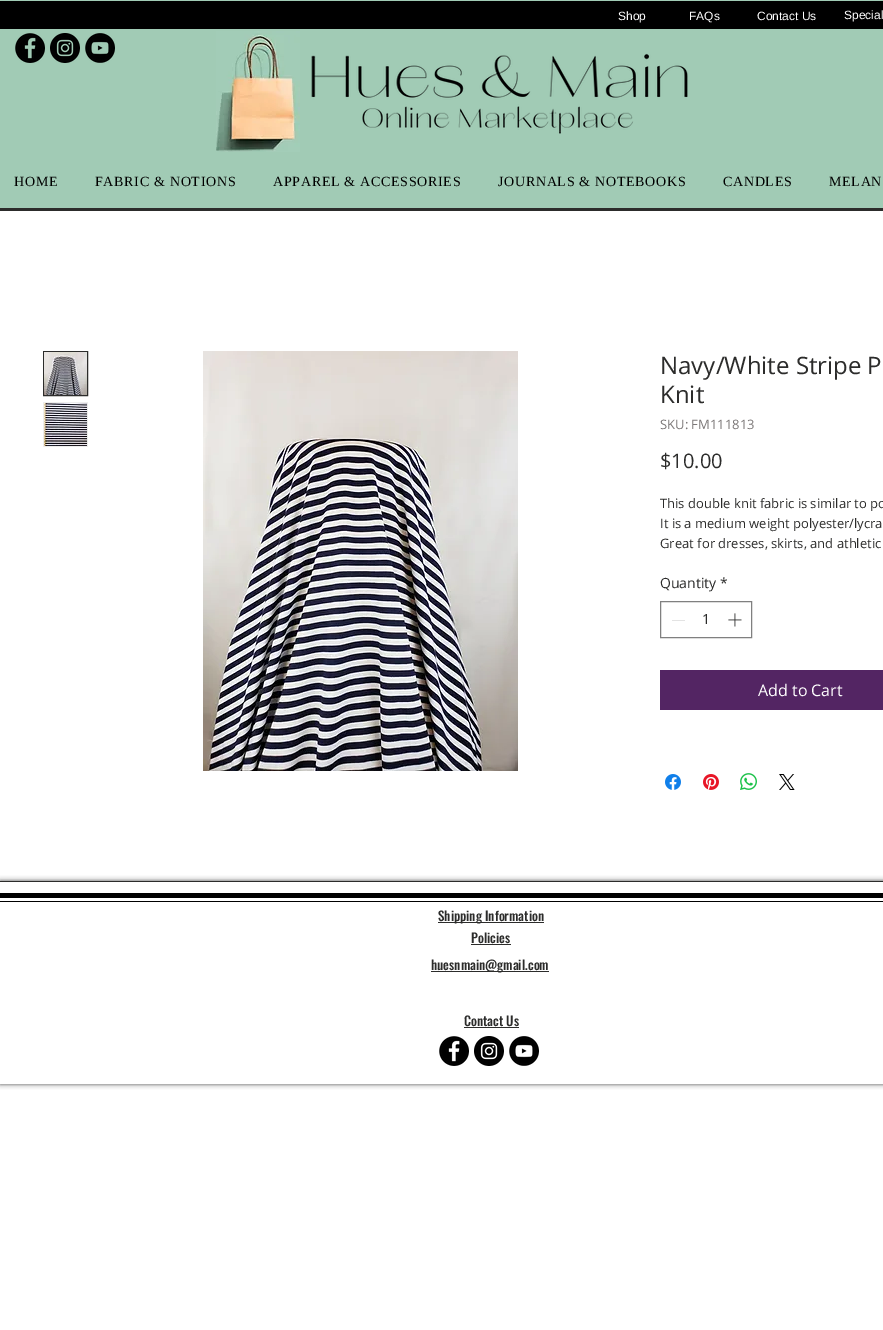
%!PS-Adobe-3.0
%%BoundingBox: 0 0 883 1330
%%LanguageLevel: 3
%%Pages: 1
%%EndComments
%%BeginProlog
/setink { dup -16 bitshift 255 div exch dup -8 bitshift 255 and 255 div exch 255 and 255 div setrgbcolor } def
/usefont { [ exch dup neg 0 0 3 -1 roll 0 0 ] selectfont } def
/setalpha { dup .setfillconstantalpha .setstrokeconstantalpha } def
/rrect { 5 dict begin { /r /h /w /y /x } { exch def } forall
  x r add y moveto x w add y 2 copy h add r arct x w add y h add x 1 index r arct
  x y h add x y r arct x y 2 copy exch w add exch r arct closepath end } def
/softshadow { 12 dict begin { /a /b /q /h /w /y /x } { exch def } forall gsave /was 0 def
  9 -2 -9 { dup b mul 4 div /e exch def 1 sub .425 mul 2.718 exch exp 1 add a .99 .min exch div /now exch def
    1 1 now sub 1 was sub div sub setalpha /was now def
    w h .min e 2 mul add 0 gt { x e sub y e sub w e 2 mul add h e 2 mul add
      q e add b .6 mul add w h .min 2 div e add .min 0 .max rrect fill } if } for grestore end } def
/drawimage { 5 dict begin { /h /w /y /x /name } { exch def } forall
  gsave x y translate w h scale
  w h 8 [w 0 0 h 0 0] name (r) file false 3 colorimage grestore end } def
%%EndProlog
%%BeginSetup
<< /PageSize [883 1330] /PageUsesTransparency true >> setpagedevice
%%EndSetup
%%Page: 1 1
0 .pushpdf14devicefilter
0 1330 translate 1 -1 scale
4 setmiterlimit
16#FFFFFF setink
0 0 883 1330 rectfill
[
    [0 0 883 208 16#A1CBB5]
    [0 208 883 3 16#2C2C2B]
    [0 1 883 28 16#000000]
] { aload pop setink rectfill } forall
/LiberationSans-Regular 12 usefont
16#FFFFFF setink
[
    [(Shop) 618 20]
    [(FAQs) 689 20]
    [(Contact Us) 757 20]
    [(Special) 844 19]
] { aload pop moveto show } forall
(img1.raw) 15 33 30 30 drawimage
(img2.raw) 50 33 30 30 drawimage
(img3.raw) 85 33 30 30 drawimage
(img4.raw) 216 31 84 121 drawimage
(img5.raw) 311 53 377 81 drawimage
/LiberationSerif-Regular 14 usefont
16#000000 setink
14 186 moveto 0.7 0 (HOME) ashow
95 186 moveto 0.7 0 (FABRIC & NOTIONS) ashow
273 186 moveto 0.7 0 (APPAREL & ACCESSORIES) ashow
498 186 moveto 0.7 0 (JOURNALS & NOTEBOOKS) ashow
723 186 moveto 0.7 0 (CANDLES) ashow
829 186 moveto 0.7 0 (MELAN) ashow
16#2C2C2B setink
43.5 351.5 44 44 rectstroke
(img6.raw) 44 352 43 43 drawimage
16#EDEDEC setink
43 402 45 45 rectfill
(img7.raw) 44 403 43 43 drawimage
(img8.raw) 203 351 315 420 drawimage
/OpenSans-Regular 24 usefont
16#2C2C2B setink
660 374 moveto (Navy/White Stripe P) show
660 403 moveto (Knit) show
/OpenSans-Regular 13 usefont
16#7C7878 setink
660 429 moveto (SKU: FM111813) show
/OpenSans-Regular 20 usefont
16#2C2C2B setink
660 468 moveto ($10.00) show
/OpenSans-Regular 13 usefont
[
    [(This double knit fabric is similar to po) 660 508]
    [(It is a medium weight polyester/lycra) 660 528]
    [(Great for dresses, skirts, and athletic) 660 548]
] { aload pop moveto show } forall
/OpenSans-Regular 14 usefont
660 588 moveto (Quantity) show
720 588 moveto (*) show
16#808080 setink
660.5 601.5 91 36 rectstroke
16#E3E3E3 setink
672 620 13 1 rectfill
16#2C2C2B setink
702 624 moveto (1) show
(img9.raw) 728 613 14 14 drawimage
16#532563 setink
660 670 223 40 rectfill
/OpenSans-Regular 16 usefont
16#FFFFFF setink
758 696 moveto (Add to Cart) show
(img10.raw) 665 774 16 16 drawimage
(img11.raw) 703 774 16 16 drawimage
(img12.raw) 740 773 17 17 drawimage
(img13.raw) 779 774 16 16 drawimage
gsave
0 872 moveto 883 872 lineto 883 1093 lineto 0 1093 lineto closepath 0 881 moveto 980 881 lineto 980 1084 lineto 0 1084 lineto closepath eoclip newpath
16#000000 setink
0 881 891 203 0 2.5 0.7 softshadow
grestore
[
    [0 881 883 1 16#2C2C2B]
    [0 893 883 5 16#000000]
    [0 901 883 1 16#000000]
    [438 922 106 1 16#2C2C2B]
] { aload pop setink rectfill } forall
/Oswald-Medium 13 usefont
438 921 moveto (Shipping Information) show
471 943 moveto (Policies) show
471 944 40 1 rectfill
431 971 118 1 rectfill
431 970 moveto (huesnmain@gmail.com) show
464 1026 moveto (Contact Us) show
464 1027 55 1 rectfill
(img14.raw) 439 1036 30 30 drawimage
(img15.raw) 474 1036 30 30 drawimage
(img16.raw) 509 1036 30 30 drawimage
.poppdf14devicefilter showpage
%%EOF
